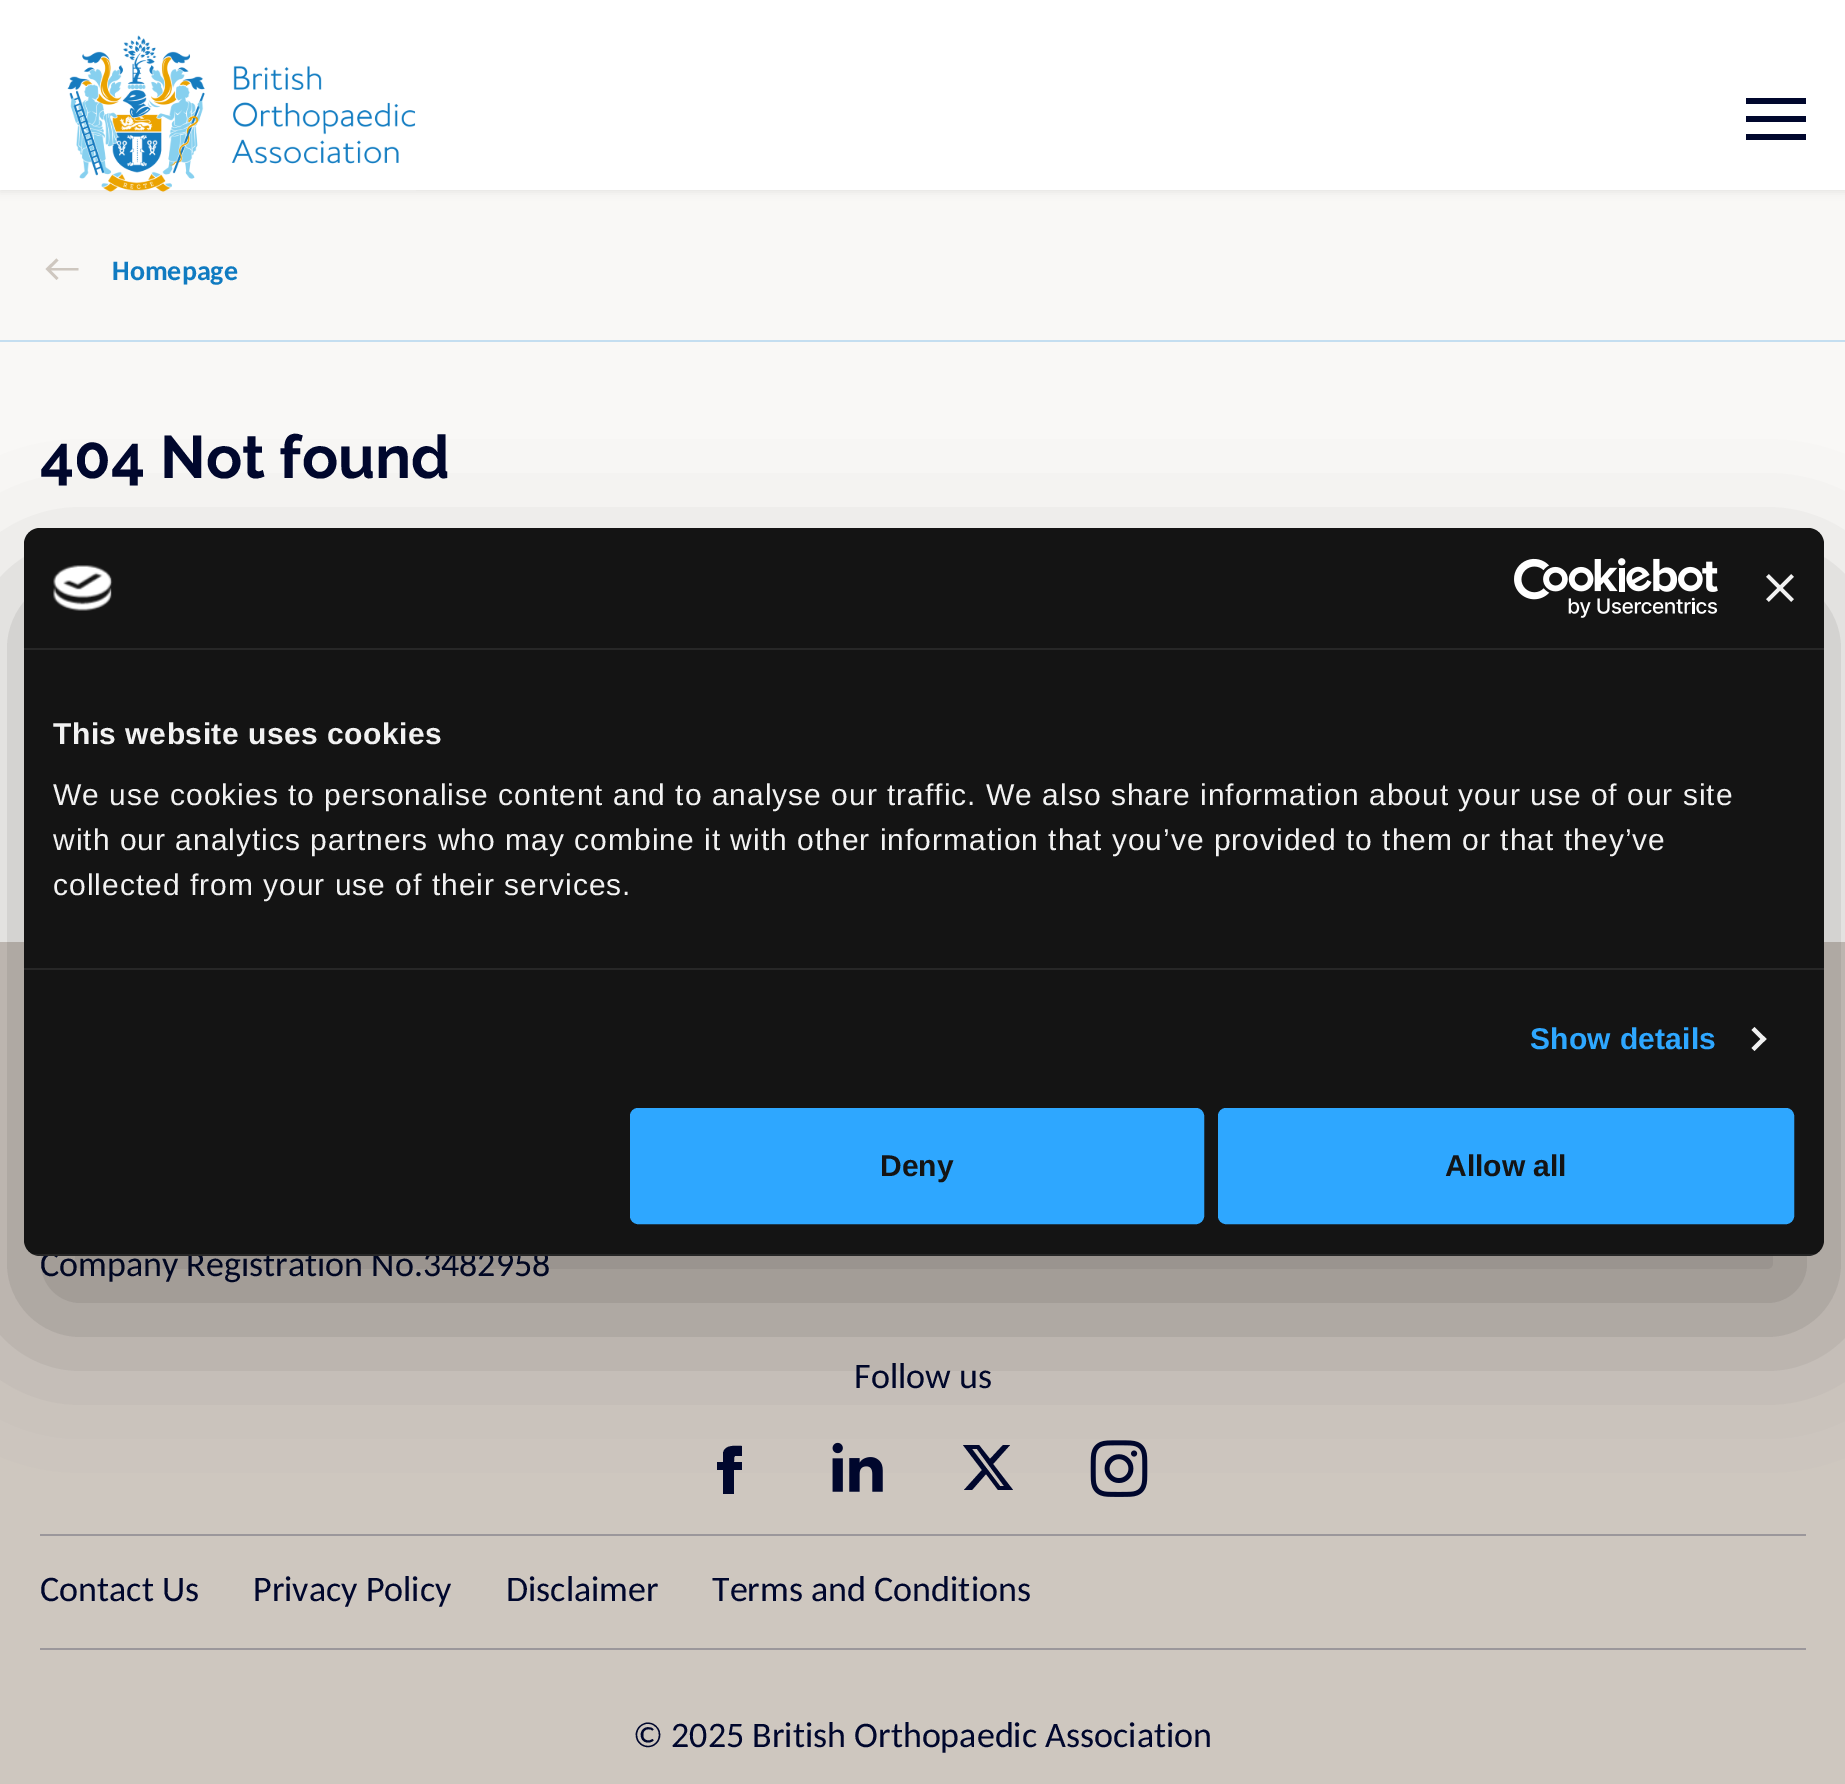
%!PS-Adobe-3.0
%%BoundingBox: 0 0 1845 1784
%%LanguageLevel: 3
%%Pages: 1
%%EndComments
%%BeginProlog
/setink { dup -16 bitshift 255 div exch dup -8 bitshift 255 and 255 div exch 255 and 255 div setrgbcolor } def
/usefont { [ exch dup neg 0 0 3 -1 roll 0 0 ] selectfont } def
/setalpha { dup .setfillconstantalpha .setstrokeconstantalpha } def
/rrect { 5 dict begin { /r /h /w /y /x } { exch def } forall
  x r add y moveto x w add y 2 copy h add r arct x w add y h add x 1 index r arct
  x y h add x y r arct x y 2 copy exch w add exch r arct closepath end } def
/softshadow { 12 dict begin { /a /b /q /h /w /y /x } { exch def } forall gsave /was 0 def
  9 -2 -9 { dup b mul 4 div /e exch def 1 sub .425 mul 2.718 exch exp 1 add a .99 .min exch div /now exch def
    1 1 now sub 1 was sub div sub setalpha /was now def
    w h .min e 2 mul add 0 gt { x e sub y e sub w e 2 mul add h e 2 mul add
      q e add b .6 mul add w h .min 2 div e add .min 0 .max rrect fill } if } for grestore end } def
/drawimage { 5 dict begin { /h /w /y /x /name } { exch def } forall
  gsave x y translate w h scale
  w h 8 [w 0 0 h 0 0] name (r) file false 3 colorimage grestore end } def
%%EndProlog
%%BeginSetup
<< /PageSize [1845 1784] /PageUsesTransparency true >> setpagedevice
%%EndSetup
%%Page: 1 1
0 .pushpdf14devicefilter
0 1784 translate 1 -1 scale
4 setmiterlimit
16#F9F8F6 setink
0 0 1845 1784 rectfill
16#000000 setink
0 2 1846 190 0 4 0.07 softshadow
16#FFFFFF setink
0 0 1845 190 rectfill
(img1.raw) 67 35 349 157 drawimage
[
    [1746 116 60 6 16#00072D]
    [1746 98 60 6 16#00072D]
    [1746 134 60 6 16#00072D]
    [0 340 1845 2 16#C4DEF0]
] { aload pop setink rectfill } forall
16#CEC7BF setink
51 270.5 moveto 58.5 278 lineto 56.5 280 lineto 45.5 269 lineto 56.5 258.5 lineto 58.5 260.5 lineto 51 268 lineto 78.5 268 lineto 78.5 270.5 lineto closepath fill
/Carlito-Bold 28 usefont
16#107BC1 setink
112 280 moveto (Homepage) show
/Raleway-Bold 60 usefont
16#00072D setink
40 478 moveto (404 Not found) show
16#CEC7BF setink
0 942 1845 842 rectfill
/Carlito-Regular 36 usefont
16#00072D setink
40 1276 moveto (Company Registration No.3482958) show
854 1388 moveto (Follow us) show
723 1462 moveto 717 1462 lineto 717 1470 lineto 723 1470 lineto 723 1494 lineto 734 1494 lineto 734 1470 lineto 742 1470 lineto 742 1462 lineto 734 1462 lineto 734 1454 734 1456 742 1456 curveto 742 1446 lineto 736 1446 725 1444 723 1453 curveto closepath fill
(img2.raw) 832 1442 51 50 drawimage
1003 1445 moveto 1010 1445 lineto 993 1464 lineto 1013 1490 lineto 998 1490 lineto 986 1474 lineto 972 1490 lineto 964 1490 lineto 982 1470 lineto 963 1445 lineto 979 1445 lineto 990 1459 lineto closepath 1000 1486 moveto 1004 1486 lineto 977 1449 lineto 972 1449 lineto closepath fill
(img3.raw) 1090 1440 58 57 drawimage
16#9B979B setink
40 1534 1766 2 rectfill
40 1648 1766 2 rectfill
16#00072D setink
[
    [(Contact Us) 40 1601]
    [(Privacy Policy) 253 1601]
    [(Disclaimer) 506 1601]
    [(Terms and Conditions) 712 1601]
    [(© 2025 British Orthopaedic Association) 633 1747]
] { aload pop moveto show } forall
16#000000 setink
24 592 1800 728 16 68 0.3 softshadow
16#141414 setink
24 528 1800 728 16 rrect fill
16#272727 setink
24 648 1800 2 rectfill
(img4.raw) 53 565 60 46 drawimage
(img5.raw) 1514 558 204 60 drawimage
(img6.raw) 1766 574 28 28 drawimage
24 968 1800 2 rectfill
/LiberationSans-Bold 30 usefont
16#F2F2F2 setink
53 744 moveto 0.5 0 (This website uses cookies) ashow
/LiberationSans-Regular 30 usefont
53 805 moveto 1 0 (We use cookies to personalise content and to analyse our traffic. We also share information about your use of our site) ashow
53 850 moveto 1 0 (with our analytics partners who may combine it with other information that you’ve provided to them or that they’ve) ashow
53 895 moveto 1 0 (collected from your use of their services.) ashow
/LiberationSans-Bold 30 usefont
16#2EA7FF setink
1530 1049 moveto 0.25 0 (Show details) ashow
16#F2F2F2 setink
1754.5 1027 moveto 1766.5 1039 lineto 1763.5 1042 lineto 1751.5 1030 lineto closepath fill
1763.5 1036 moveto 1766.5 1039 lineto 1754.5 1051 lineto 1751.5 1048 lineto closepath fill
gsave
24 528 1800 728 16 rrect clip newpath
0.08 setalpha
16#FFFFFF setink
33 1254 1782 2 rectfill
grestore
16#2EA7FF setink
632 1110 570 112 6 rrect gsave fill grestore
4 setlinewidth
stroke
16#141414 setink
880 1176 moveto (Deny) show
16#2EA7FF setink
1220 1110 572 112 6 rrect gsave fill grestore
stroke
16#141414 setink
1445 1176 moveto (Allow all) show
.poppdf14devicefilter showpage
%%EOF
